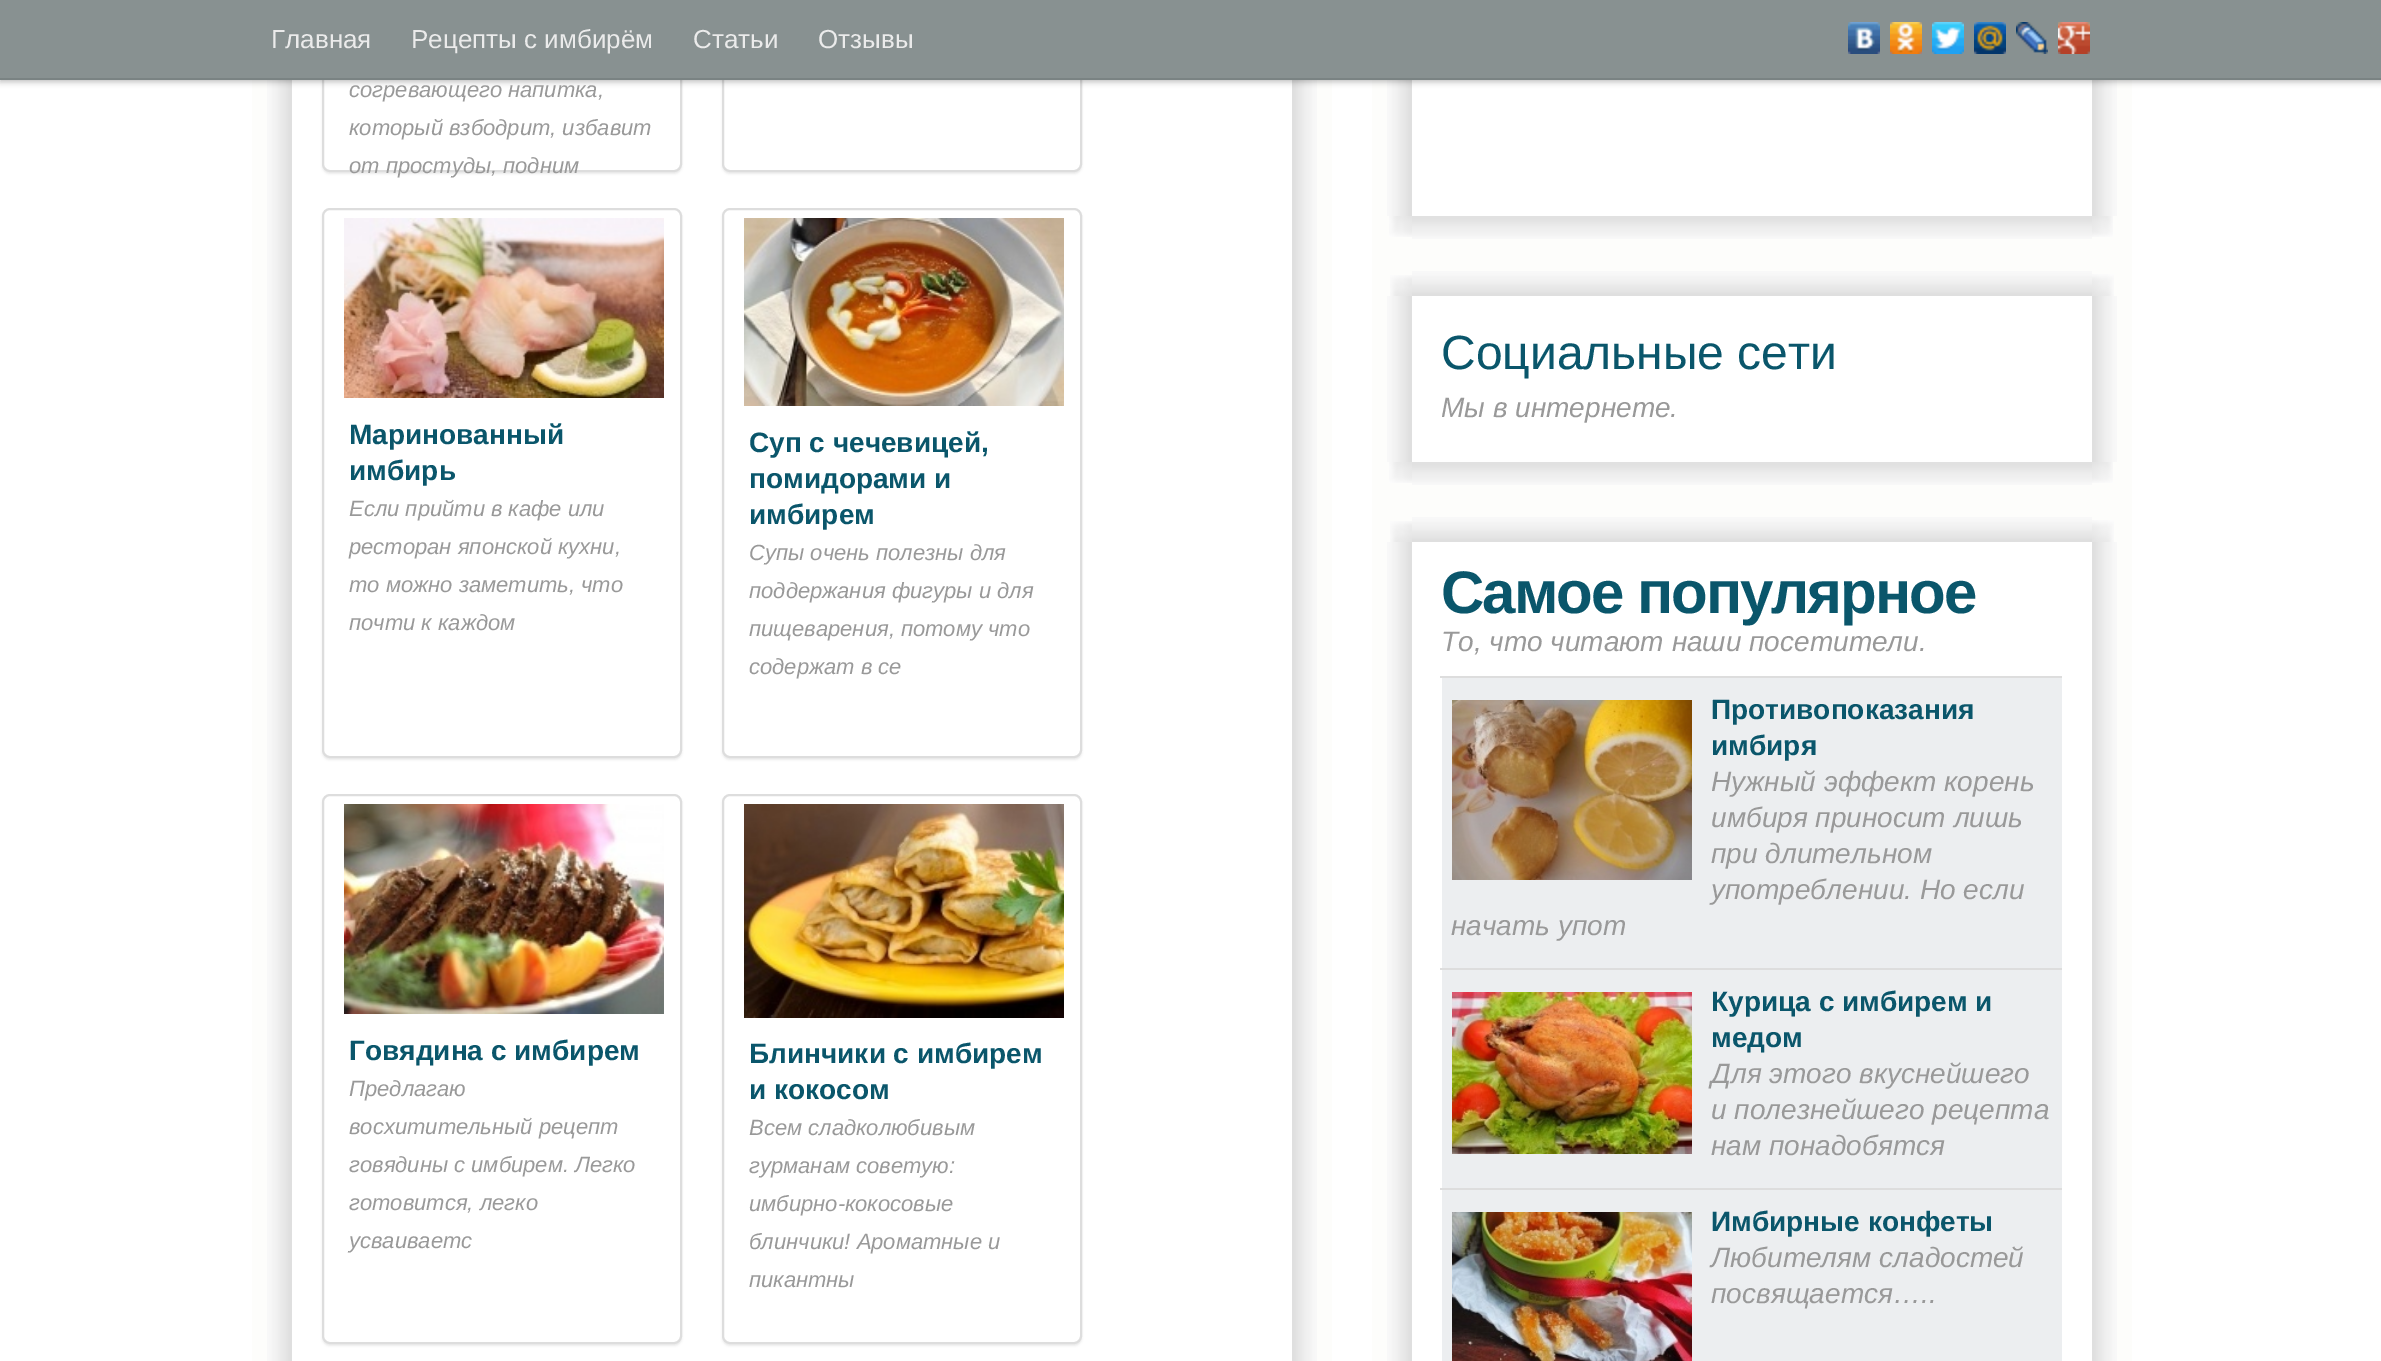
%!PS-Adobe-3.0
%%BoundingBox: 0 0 2381 1361
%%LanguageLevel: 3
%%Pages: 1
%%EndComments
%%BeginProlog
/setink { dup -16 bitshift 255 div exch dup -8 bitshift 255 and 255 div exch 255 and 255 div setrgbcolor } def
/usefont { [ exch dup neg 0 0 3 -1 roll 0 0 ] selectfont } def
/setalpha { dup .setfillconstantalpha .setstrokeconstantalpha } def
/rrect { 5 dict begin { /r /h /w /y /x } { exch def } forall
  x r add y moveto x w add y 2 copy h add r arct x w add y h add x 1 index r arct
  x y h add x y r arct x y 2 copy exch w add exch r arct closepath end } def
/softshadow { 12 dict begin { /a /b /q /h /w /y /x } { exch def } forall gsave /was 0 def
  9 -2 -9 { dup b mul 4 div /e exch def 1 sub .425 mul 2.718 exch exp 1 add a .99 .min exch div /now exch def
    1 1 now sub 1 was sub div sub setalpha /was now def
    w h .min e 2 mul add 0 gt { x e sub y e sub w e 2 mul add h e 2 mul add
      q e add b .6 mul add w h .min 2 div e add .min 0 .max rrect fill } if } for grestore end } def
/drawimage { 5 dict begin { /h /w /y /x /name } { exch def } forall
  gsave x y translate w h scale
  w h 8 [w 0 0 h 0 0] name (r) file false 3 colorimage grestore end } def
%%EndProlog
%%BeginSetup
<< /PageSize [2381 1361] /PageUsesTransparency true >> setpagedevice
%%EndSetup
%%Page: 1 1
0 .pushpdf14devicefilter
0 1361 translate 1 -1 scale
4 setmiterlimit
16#FFFFFF setink
0 0 2381 1361 rectfill
16#FDFDFB setink
252 80 15 1281 rectfill
(img7.raw) 267 80 25 1281 drawimage
gsave
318 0 moveto 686 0 lineto 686 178 lineto 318 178 lineto closepath 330 -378 moveto 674 -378 lineto 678.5 -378 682 -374.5 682 -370 curveto 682 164 lineto 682 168.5 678.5 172 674 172 curveto 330 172 lineto 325.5 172 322 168.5 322 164 curveto 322 -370 lineto 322 -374.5 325.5 -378 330 -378 curveto closepath eoclip newpath
16#000000 setink
322 -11 360 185 8 1 0.07 softshadow
grestore
16#DDDDDD setink
2 setlinewidth
323 -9 358 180 7 rrect stroke
gsave
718 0 moveto 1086 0 lineto 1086 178 lineto 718 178 lineto closepath 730 -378 moveto 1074 -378 lineto 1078.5 -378 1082 -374.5 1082 -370 curveto 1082 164 lineto 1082 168.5 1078.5 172 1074 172 curveto 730 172 lineto 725.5 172 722 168.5 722 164 curveto 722 -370 lineto 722 -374.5 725.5 -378 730 -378 curveto closepath eoclip newpath
16#000000 setink
722 -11 360 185 8 1 0.07 softshadow
grestore
723 -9 358 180 7 rrect stroke
16#FDFDFB setink
1317 80 15 1281 rectfill
(img12.raw) 1292 80 25 1281 drawimage
1372 80 15 136 rectfill
(img13.raw) 1387 80 25 136 drawimage
2117 80 15 136 rectfill
(img14.raw) 2092 80 25 136 drawimage
16#000000 setink
0 2 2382 80 0 3 0.25 softshadow
16#889191 setink
0 0 2381 78 rectfill
16#7A8383 setink
0 78 2381 2 rectfill
/LiberationSans-Regular 26 usefont
16#EBEBEB setink
[
    [(Главная) 271 48]
    [(Рецепты с имбирём) 411 48]
    [(Статьи) 693 48]
    [(Отзывы) 818 48]
] { aload pop moveto show } forall
(img1.raw) 1848 22 32 32 drawimage
(img2.raw) 1890 22 32 32 drawimage
(img3.raw) 1932 22 32 32 drawimage
(img4.raw) 1974 22 32 32 drawimage
(img5.raw) 2016 22 32 32 drawimage
(img6.raw) 2058 22 32 32 drawimage
/LiberationSans-Italic 22 usefont
16#999999 setink
[
    [(согревающего напитка,) 349 97]
    [(который взбодрит, избавит) 349 135]
    [(от простуды, подним) 349 173]
] { aload pop moveto show } forall
gsave
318 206 moveto 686 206 lineto 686 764 lineto 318 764 lineto closepath 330 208 moveto 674 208 lineto 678.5 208 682 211.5 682 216 curveto 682 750 lineto 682 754.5 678.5 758 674 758 curveto 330 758 lineto 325.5 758 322 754.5 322 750 curveto 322 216 lineto 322 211.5 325.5 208 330 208 curveto closepath eoclip newpath
16#000000 setink
322 210 360 550 8 1 0.07 softshadow
grestore
16#DDDDDD setink
323 209 358 548 7 rrect stroke
(img8.raw) 344 218 320 180 drawimage
/LiberationSans-Bold 28 usefont
16#0A566B setink
349 444 moveto (Маринованный) show
349 480 moveto (имбирь) show
/LiberationSans-Italic 22 usefont
16#999999 setink
[
    [(Если прийти в кафе или) 349 516]
    [(ресторан японской кухни,) 349 554]
    [(то можно заметить, что) 349 592]
    [(почти к каждом) 349 630]
] { aload pop moveto show } forall
gsave
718 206 moveto 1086 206 lineto 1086 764 lineto 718 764 lineto closepath 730 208 moveto 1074 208 lineto 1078.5 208 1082 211.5 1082 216 curveto 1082 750 lineto 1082 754.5 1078.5 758 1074 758 curveto 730 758 lineto 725.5 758 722 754.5 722 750 curveto 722 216 lineto 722 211.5 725.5 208 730 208 curveto closepath eoclip newpath
16#000000 setink
722 210 360 550 8 1 0.07 softshadow
grestore
16#DDDDDD setink
723 209 358 548 7 rrect stroke
(img9.raw) 744 218 320 188 drawimage
/LiberationSans-Bold 28 usefont
16#0A566B setink
[
    [(Суп с чечевицей,) 749 452]
    [(помидорами и) 749 488]
    [(имбирем) 749 524]
] { aload pop moveto show } forall
/LiberationSans-Italic 22 usefont
16#999999 setink
[
    [(Супы очень полезны для) 749 560]
    [(поддержания фигуры и для) 749 598]
    [(пищеварения, потому что) 749 636]
    [(содержат в се) 749 674]
] { aload pop moveto show } forall
gsave
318 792 moveto 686 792 lineto 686 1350 lineto 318 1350 lineto closepath 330 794 moveto 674 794 lineto 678.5 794 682 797.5 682 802 curveto 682 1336 lineto 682 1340.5 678.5 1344 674 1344 curveto 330 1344 lineto 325.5 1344 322 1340.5 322 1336 curveto 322 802 lineto 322 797.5 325.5 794 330 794 curveto closepath eoclip newpath
16#000000 setink
322 796 360 550 8 1 0.07 softshadow
grestore
16#DDDDDD setink
323 795 358 548 7 rrect stroke
(img10.raw) 344 804 320 210 drawimage
/LiberationSans-Bold 28 usefont
16#0A566B setink
349 1060 moveto (Говядина с имбирем) show
/LiberationSans-Italic 22 usefont
16#999999 setink
[
    [(Предлагаю) 349 1096]
    [(восхитительный рецепт) 349 1134]
    [(говядины с имбирем. Легко) 349 1172]
    [(готовится, легко) 349 1210]
    [(усваиваетс) 349 1248]
] { aload pop moveto show } forall
gsave
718 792 moveto 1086 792 lineto 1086 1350 lineto 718 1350 lineto closepath 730 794 moveto 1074 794 lineto 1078.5 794 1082 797.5 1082 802 curveto 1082 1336 lineto 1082 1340.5 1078.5 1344 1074 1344 curveto 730 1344 lineto 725.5 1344 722 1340.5 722 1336 curveto 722 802 lineto 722 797.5 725.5 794 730 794 curveto closepath eoclip newpath
16#000000 setink
722 796 360 550 8 1 0.07 softshadow
grestore
16#DDDDDD setink
723 795 358 548 7 rrect stroke
(img11.raw) 744 804 320 214 drawimage
/LiberationSans-Bold 28 usefont
16#0A566B setink
749 1063 moveto (Блинчики с имбирем) show
749 1099 moveto (и кокосом) show
/LiberationSans-Italic 22 usefont
16#999999 setink
[
    [(Всем сладколюбивым) 749 1135]
    [(гурманам советую:) 749 1173]
    [(имбирно-кокосовые) 749 1211]
    [(блинчики! Ароматные и) 749 1249]
    [(пикантны) 749 1287]
] { aload pop moveto show } forall
16#FDFDFB setink
1372 216 40 80 rectfill
(img15.raw) 1389 216 23 21 drawimage
1412 239 680 32 rectfill
(img16.raw) 1412 216 680 23 drawimage
2092 216 40 80 rectfill
(img17.raw) 2092 216 21 21 drawimage
(img18.raw) 1390 275 22 21 drawimage
(img19.raw) 1412 271 680 25 drawimage
(img20.raw) 2092 274 22 22 drawimage
1372 296 15 166 rectfill
(img21.raw) 1387 296 25 166 drawimage
/LiberationSans-Regular 48 usefont
16#0A566B setink
1441 369 moveto (Социальные сети) show
/LiberationSans-Italic 28 usefont
16#999999 setink
1441 417 moveto (Мы в интернете.) show
16#FDFDFB setink
2117 296 15 166 rectfill
(img22.raw) 2092 296 25 166 drawimage
1372 462 40 80 rectfill
(img15.raw) 1389 462 23 21 drawimage
1412 485 680 32 rectfill
(img16.raw) 1412 462 680 23 drawimage
2092 462 40 80 rectfill
(img17.raw) 2092 462 21 21 drawimage
(img18.raw) 1390 521 22 21 drawimage
(img19.raw) 1412 517 680 25 drawimage
(img20.raw) 2092 520 22 22 drawimage
1372 542 15 819 rectfill
(img23.raw) 1387 542 25 819 drawimage
/LiberationSans-Bold 60 usefont
16#0A566B setink
1441 613 moveto -2 0 (Самое популярное) ashow
/LiberationSans-Italic 28 usefont
16#999999 setink
1441 651 moveto (То, что читают наши посетители.) show
16#ECEEF0 setink
1442 678 620 290 rectfill
16#DDDDDD setink
1440 676 622 2 rectfill
(img24.raw) 1452 700 240 180 drawimage
/LiberationSans-Bold 28 usefont
16#0A566B setink
1711 719 moveto (Противопоказания) show
1711 755 moveto (имбиря) show
/LiberationSans-Italic 28 usefont
16#999999 setink
[
    [(Нужный эффект корень) 1711 791]
    [(имбиря приносит лишь) 1711 827]
    [(при длительном) 1711 863]
    [(употреблении. Но если) 1711 899]
    [(начать упот) 1451 935]
] { aload pop moveto show } forall
16#ECEEF0 setink
1442 970 620 218 rectfill
16#DDDDDD setink
1440 968 622 2 rectfill
(img25.raw) 1452 992 240 162 drawimage
/LiberationSans-Bold 28 usefont
16#0A566B setink
1711 1011 moveto (Курица с имбирем и) show
1711 1047 moveto (медом) show
/LiberationSans-Italic 28 usefont
16#999999 setink
[
    [(Для этого вкуснейшего) 1711 1083]
    [(и полезнейшего рецепта) 1711 1119]
    [(нам понадобятся) 1711 1155]
] { aload pop moveto show } forall
16#ECEEF0 setink
1442 1190 620 171 rectfill
16#DDDDDD setink
1440 1188 622 2 rectfill
(img26.raw) 1452 1212 240 149 drawimage
/LiberationSans-Bold 28 usefont
16#0A566B setink
1711 1231 moveto (Имбирные конфеты) show
/LiberationSans-Italic 28 usefont
16#999999 setink
1711 1267 moveto (Любителям сладостей) show
1711 1303 moveto (посвящается…..) show
16#FDFDFB setink
2117 542 15 819 rectfill
(img27.raw) 2092 542 25 819 drawimage
.poppdf14devicefilter showpage
%%EOF
